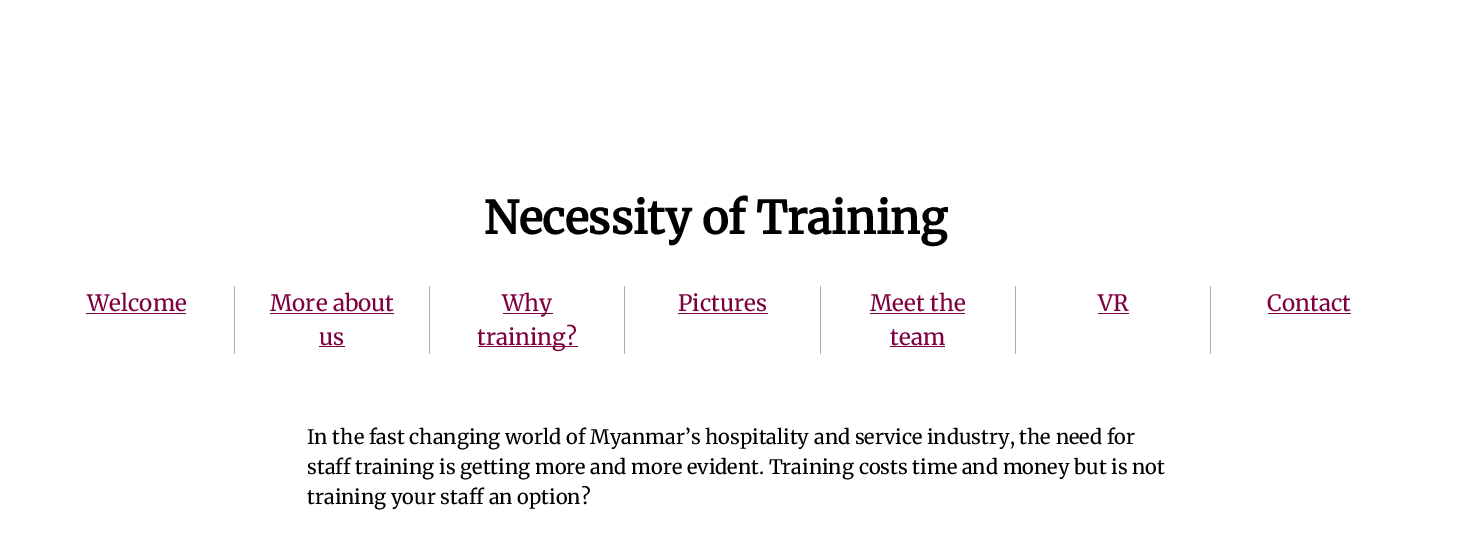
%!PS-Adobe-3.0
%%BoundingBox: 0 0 1475 539
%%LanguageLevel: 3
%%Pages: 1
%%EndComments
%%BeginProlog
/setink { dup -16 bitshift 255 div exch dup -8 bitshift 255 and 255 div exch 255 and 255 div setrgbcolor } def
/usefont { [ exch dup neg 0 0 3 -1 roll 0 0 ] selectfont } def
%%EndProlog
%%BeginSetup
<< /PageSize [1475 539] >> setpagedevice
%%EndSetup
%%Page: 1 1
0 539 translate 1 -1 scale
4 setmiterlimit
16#FFFFFF setink
0 0 1475 539 rectfill
/Merriweather-Bold 45 usefont
16#000000 setink
484 234 moveto (Necessity of Training) show
16#AEAEAE setink
234 286 1 68 rectfill
/Merriweather-Light 22.5 usefont
16#7F003F setink
87 311 moveto (Welcome) show
86 313 100 1 rectfill
16#AEAEAE setink
429 286 1 68 rectfill
16#7F003F setink
270 311 moveto (More about) show
270 313 124 1 rectfill
319 345 moveto (us) show
[
    [319 346 26 1 16#7F003F]
    [624 286 1 68 16#AEAEAE]
    [503 313 50 1 16#7F003F]
] { aload pop setink rectfill } forall
502 311 moveto (Why) show
478 346 100 1 rectfill
477 345 moveto (training?) show
16#AEAEAE setink
820 286 1 68 rectfill
16#7F003F setink
678 311 moveto (Pictures) show
678 313 90 1 rectfill
16#AEAEAE setink
1015 286 1 68 rectfill
16#7F003F setink
870 311 moveto (Meet the) show
870 313 95 1 rectfill
890 345 moveto (team) show
890 346 55 1 rectfill
16#AEAEAE setink
1210 286 1 68 rectfill
16#7F003F setink
1098 311 moveto (VR) show
1098 313 31 1 rectfill
1267 311 moveto (Contact) show
1268 313 83 1 rectfill
/Merriweather-Light 20 usefont
16#000000 setink
[
    [(In the fast changing world of Myanmar’s hospitality and service industry, the need for) 307 444]
    [(staff training is getting more and more evident. Training costs time and money but is not) 307 474]
    [(training your staff an option?) 307 504]
] { aload pop moveto show } forall
showpage
%%EOF
